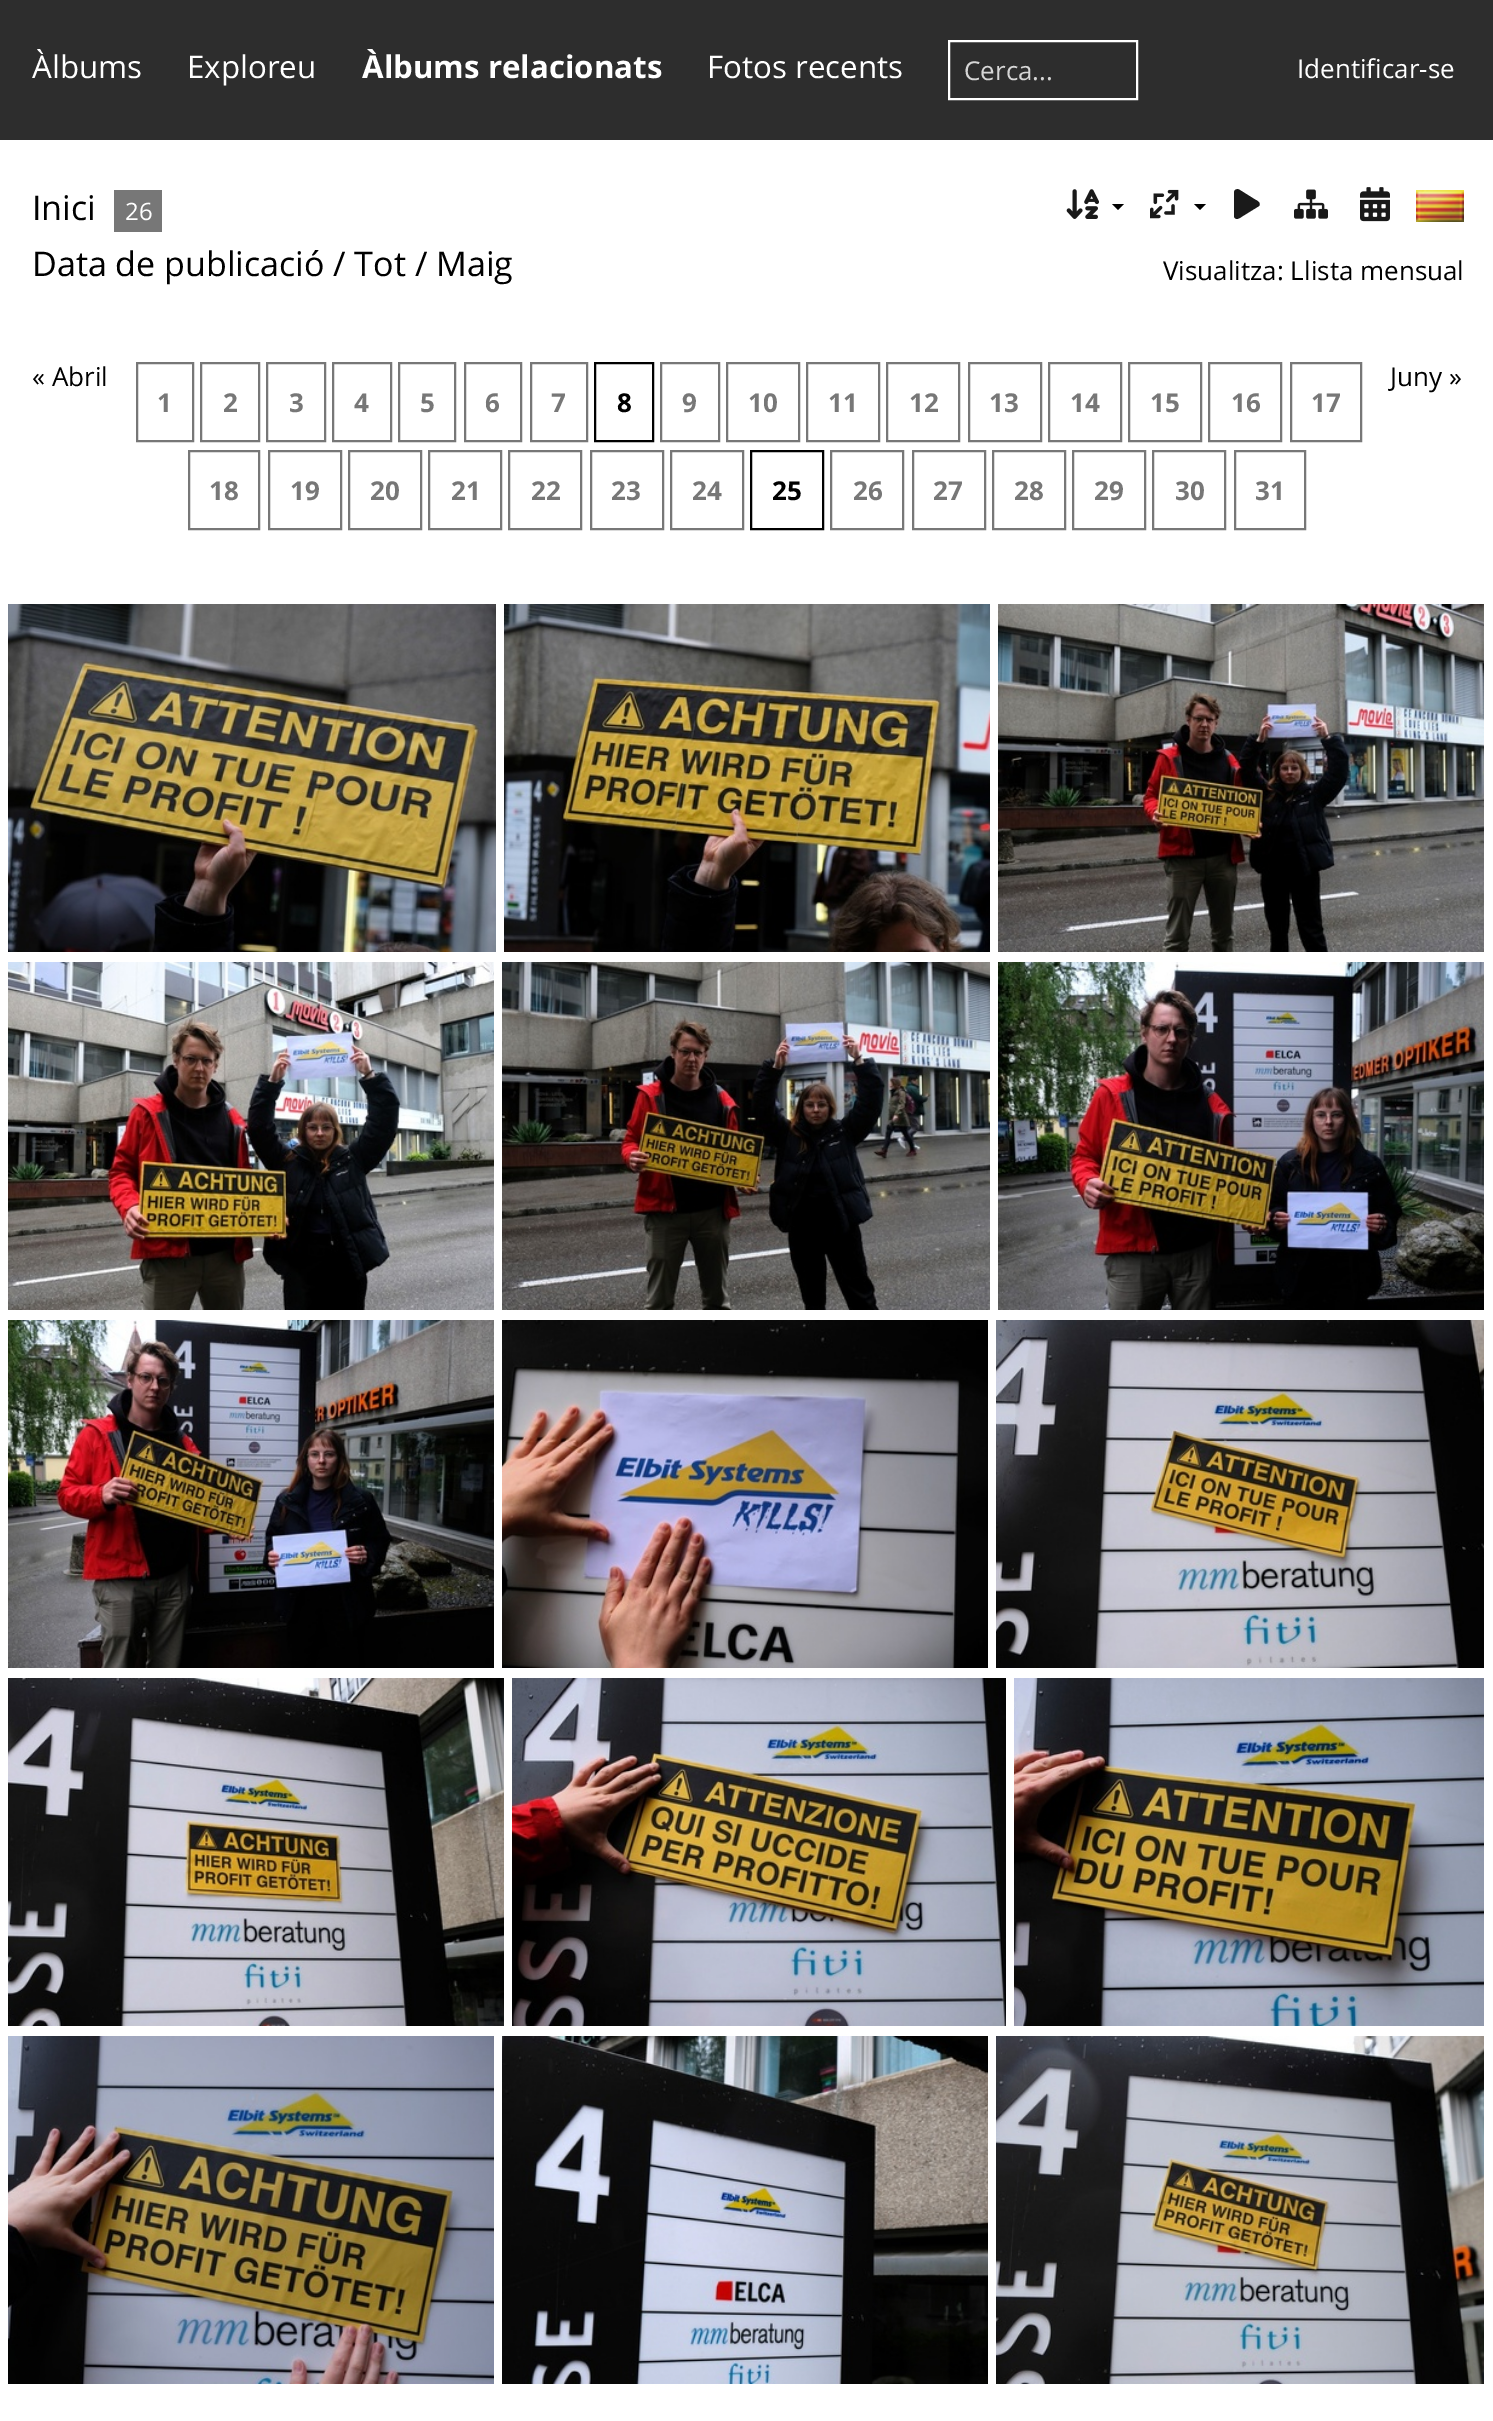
%!PS-Adobe-3.0
%%BoundingBox: 0 0 1493 2421
%%LanguageLevel: 3
%%Pages: 1
%%EndComments
%%BeginProlog
/setink { dup -16 bitshift 255 div exch dup -8 bitshift 255 and 255 div exch 255 and 255 div setrgbcolor } def
/usefont { [ exch dup neg 0 0 3 -1 roll 0 0 ] selectfont } def
/drawimage { 5 dict begin { /h /w /y /x /name } { exch def } forall
  gsave x y translate w h scale
  w h 8 [w 0 0 h 0 0] name (r) file false 3 colorimage grestore end } def
%%EndProlog
%%BeginSetup
<< /PageSize [1493 2421] >> setpagedevice
%%EndSetup
%%Page: 1 1
0 2421 translate 1 -1 scale
4 setmiterlimit
16#FFFFFF setink
0 0 1493 2421 rectfill
16#2D2D2D setink
0 0 1493 140 rectfill
/OpenSans-Regular 31.25 usefont
16#FFFFFF setink
32 78 moveto (Àlbums) show
187 78 moveto (Exploreu) show
/OpenSans-Bold 31.25 usefont
362 78 moveto (Àlbums relacionats) show
/OpenSans-Regular 31.25 usefont
707 78 moveto (Fotos recents) show
2 setlinewidth
949 41 188 58 rectstroke
/OpenSans-Regular 26 usefont
16#D6D6D6 setink
964 80 moveto (Cerca...) show
16#FFFFFF setink
1297 78 moveto (Identificar-se) show
/OpenSans-Regular 34 usefont
16#000000 setink
32 220 moveto (Inici) show
16#777777 setink
114 190 48 42 rectfill
/OpenSans-Regular 24 usefont
16#FFFFFF setink
125 220 moveto (26) show
(img1.raw) 1066 189 33 30 drawimage
16#000000 setink
1112 204 moveto 1124 204 lineto 1118 210 lineto closepath fill
(img2.raw) 1150 189 29 30 drawimage
1194 204 moveto 1206 204 lineto 1200 210 lineto closepath fill
16#1A1A1A setink
1239 189.5 moveto 1237 188.5 1234.5 189.5 1234 192 curveto 1234 216.5 lineto 1235.5 221 1240 218 1242 216.5 curveto 1259 206 lineto 1261.5 203 1257 200.5 1255 199.5 curveto closepath fill
(img3.raw) 1294 189 34 30 drawimage
(img4.raw) 1360 187 30 35 drawimage
(img5.raw) 1416 190 48 32 drawimage
/OpenSans-Regular 34 usefont
16#000000 setink
32 276 moveto (Data de publicació / Tot / Maig) show
/OpenSans-Regular 26 usefont
[
    [(Visualitza: Llista mensual) 1163 280]
    [(« Abril) 32 386]
    [(Juny ») 1390 386]
] { aload pop moveto show } forall
16#777777 setink
137 363 56 78 rectstroke
/OpenSans-Bold 26 usefont
157 412 moveto (1) show
201 363 58 78 rectstroke
223 412 moveto (2) show
267 363 58 78 rectstroke
289 412 moveto (3) show
333 363 58 78 rectstroke
354 412 moveto (4) show
399 363 56 78 rectstroke
420 412 moveto (5) show
465 363 56 78 rectstroke
485 412 moveto (6) show
531 363 56 78 rectstroke
551 412 moveto (7) show
16#000000 setink
595 363 58 78 rectstroke
617 412 moveto (8) show
16#777777 setink
661 363 58 78 rectstroke
682 412 moveto (9) show
727 363 72 78 rectstroke
748 412 moveto (10) show
807 363 72 78 rectstroke
828 412 moveto (11) show
887 363 72 78 rectstroke
909 412 moveto (12) show
969 363 72 78 rectstroke
989 412 moveto (13) show
1049 363 72 78 rectstroke
1070 412 moveto (14) show
1129 363 72 78 rectstroke
1150 412 moveto (15) show
1209 363 72 78 rectstroke
1231 412 moveto (16) show
1291 363 70 78 rectstroke
1311 412 moveto (17) show
189 451 70 78 rectstroke
209 500 moveto (18) show
269 451 72 78 rectstroke
290 500 moveto (19) show
349 451 72 78 rectstroke
370 500 moveto (20) show
429 451 72 78 rectstroke
451 500 moveto (21) show
509 451 72 78 rectstroke
531 500 moveto (22) show
591 451 72 78 rectstroke
611 500 moveto (23) show
671 451 72 78 rectstroke
692 500 moveto (24) show
16#000000 setink
751 451 72 78 rectstroke
772 500 moveto (25) show
16#777777 setink
831 451 72 78 rectstroke
853 500 moveto (26) show
913 451 72 78 rectstroke
933 500 moveto (27) show
993 451 72 78 rectstroke
1014 500 moveto (28) show
1073 451 72 78 rectstroke
1094 500 moveto (29) show
1153 451 72 78 rectstroke
1175 500 moveto (30) show
1235 451 70 78 rectstroke
1255 500 moveto (31) show
(img6.raw) 8 604 488 348 drawimage
(img7.raw) 504 604 486 348 drawimage
(img8.raw) 998 604 486 348 drawimage
(img9.raw) 8 962 486 348 drawimage
(img10.raw) 502 962 488 348 drawimage
(img11.raw) 998 962 486 348 drawimage
(img12.raw) 8 1320 486 348 drawimage
(img13.raw) 502 1320 486 348 drawimage
(img14.raw) 996 1320 488 348 drawimage
(img15.raw) 8 1678 496 348 drawimage
(img16.raw) 512 1678 494 348 drawimage
(img17.raw) 1014 1678 470 348 drawimage
(img18.raw) 8 2036 486 348 drawimage
(img19.raw) 502 2036 486 348 drawimage
(img20.raw) 996 2036 488 348 drawimage
showpage
%%EOF
